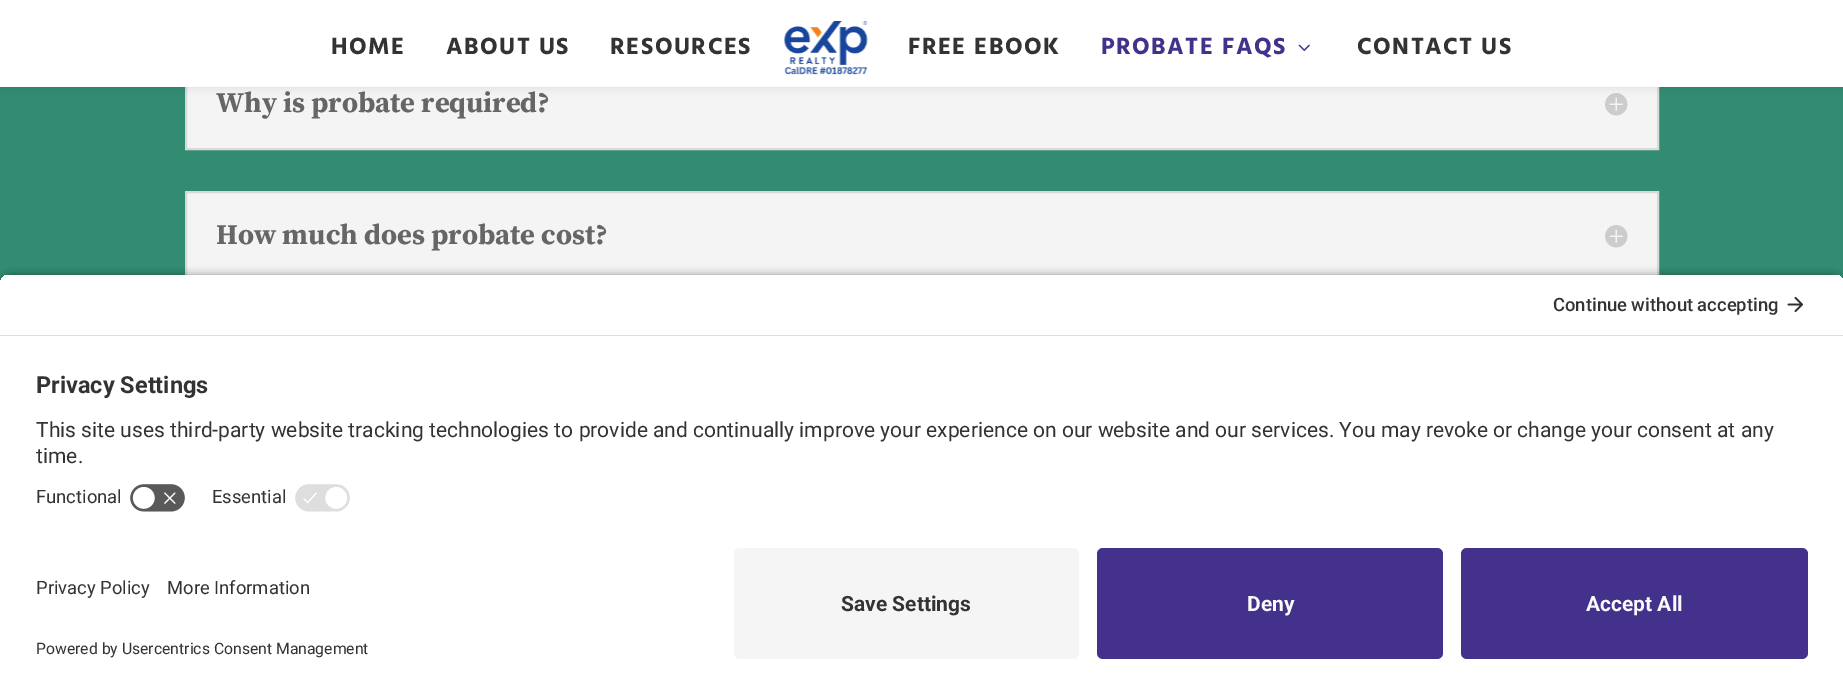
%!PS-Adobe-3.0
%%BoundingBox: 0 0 1843 694
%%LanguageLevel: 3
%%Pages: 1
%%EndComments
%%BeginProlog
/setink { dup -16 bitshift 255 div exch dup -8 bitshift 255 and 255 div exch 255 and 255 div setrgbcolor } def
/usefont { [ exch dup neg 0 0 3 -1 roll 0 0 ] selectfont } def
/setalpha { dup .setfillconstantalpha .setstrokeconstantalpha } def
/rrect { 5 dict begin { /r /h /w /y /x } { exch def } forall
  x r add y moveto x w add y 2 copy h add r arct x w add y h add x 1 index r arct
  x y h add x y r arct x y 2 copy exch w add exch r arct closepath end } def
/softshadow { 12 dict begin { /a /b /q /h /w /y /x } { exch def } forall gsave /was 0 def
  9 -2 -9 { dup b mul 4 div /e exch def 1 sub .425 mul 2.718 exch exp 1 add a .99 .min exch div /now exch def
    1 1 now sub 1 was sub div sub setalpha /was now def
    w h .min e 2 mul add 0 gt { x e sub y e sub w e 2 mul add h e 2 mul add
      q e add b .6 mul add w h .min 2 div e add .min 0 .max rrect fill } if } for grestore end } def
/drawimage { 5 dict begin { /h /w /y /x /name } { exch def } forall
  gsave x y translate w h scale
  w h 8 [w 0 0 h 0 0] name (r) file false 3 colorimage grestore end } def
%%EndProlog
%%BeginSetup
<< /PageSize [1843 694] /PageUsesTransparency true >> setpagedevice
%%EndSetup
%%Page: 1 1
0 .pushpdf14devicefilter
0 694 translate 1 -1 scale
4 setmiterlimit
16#318C71 setink
0 0 1843 694 rectfill
16#F4F4F4 setink
187 87 1470 61 rectfill
16#D9D9D9 setink
2 setlinewidth
186 60 1472 89 rectstroke
(img3.raw) 1605 93 23 23 drawimage
16#000000 setink
0 0 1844 87 0 5 0.1 softshadow
16#FFFFFF setink
0 0 1843 87 rectfill
/HindSiliguri-Bold 24 usefont
16#333333 setink
331 54 moveto 1.5 0 (HOME) ashow
446 54 moveto 1.5 0 (ABOUT US) ashow
610 54 moveto 1.5 0 (RESOURCES) ashow
(img1.raw) 784 21 84 54 drawimage
908 54 moveto 1.5 0 (FREE EBOOK) ashow
16#44318C setink
1101 54 moveto 1.5 0 (PROBATE FAQS) ashow
(img2.raw) 1298 44 12 7 drawimage
16#333333 setink
1357 54 moveto 1.5 0 (CONTACT US) ashow
/SourceSerifPro-Bold 28.5 usefont
16#666666 setink
216 112 moveto (Why is probate required?) show
16#F4F4F4 setink
187 193 1470 82 rectfill
16#D9D9D9 setink
186 192 1472 89 rectstroke
16#666666 setink
216 244 moveto (How much does probate cost?) show
(img3.raw) 1605 225 23 23 drawimage
16#000000 setink
0 278 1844 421 12 5 0.8 softshadow
gsave
12 273 moveto 1832 273 lineto 1838.5 273 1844 278.5 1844 285 curveto 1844 536 lineto 0 536 lineto 0 285 lineto 0 278.5 5.5 273 12 273 curveto closepath clip newpath
16#FFFFFF setink
0 275 1843 60 rectfill
grestore
16#DEDEDE setink
0 335 1843 1 rectfill
/Roboto-Medium 18.4 usefont
16#333333 setink
1553 311 moveto (Continue without accepting) show
(img4.raw) 1787 296 17 17 drawimage
16#FFFFFF setink
0 336 1843 358 rectfill
/Roboto-Bold 23.5 usefont
16#333333 setink
36 393 moveto (Privacy Settings) show
/Roboto-Regular 21 usefont
36 437 moveto (This site uses third-party website tracking technologies to provide and continually improve your experience on our website and our services. You may revoke or change your consent at any) show
36 463 moveto (time.) show
/Roboto-Regular 18.4 usefont
36 503 moveto (Functional) show
(img5.raw) 130 484 55 28 drawimage
212 503 moveto (Essential) show
(img6.raw) 295 484 55 28 drawimage
36 594 moveto (Privacy Policy) show
167 594 moveto (More Information) show
/Roboto-Regular 15.75 usefont
36 654 moveto (Powered by Usercentrics Consent Management) show
16#F5F5F5 setink
734 548 345 111 6 rrect fill
/Roboto-Bold 21 usefont
16#333333 setink
841 611 moveto (Save Settings) show
16#44318C setink
1097 548 346 111 6 rrect fill
16#FAFAFA setink
1247 611 moveto (Deny) show
16#44318C setink
1461 548 347 111 6 rrect fill
16#FAFAFA setink
1586 611 moveto (Accept All) show
.poppdf14devicefilter showpage
%%EOF
